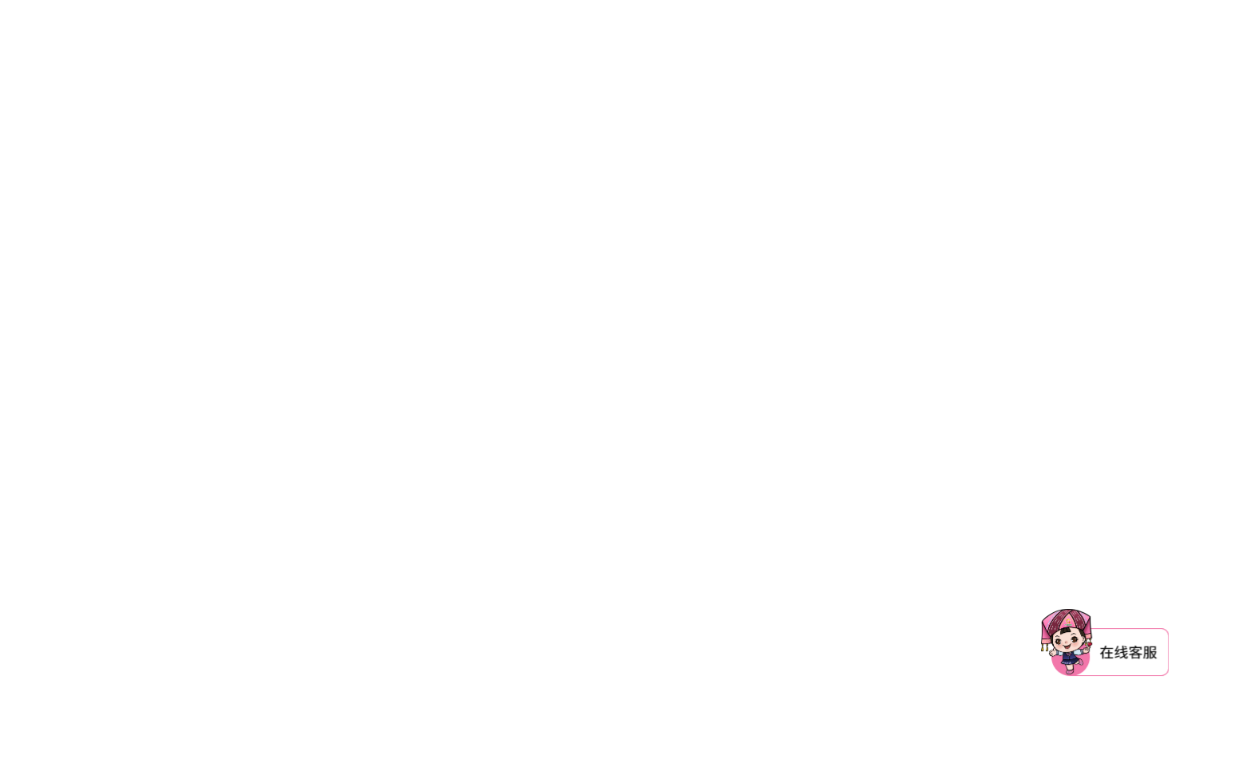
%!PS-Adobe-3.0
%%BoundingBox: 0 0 1253 780
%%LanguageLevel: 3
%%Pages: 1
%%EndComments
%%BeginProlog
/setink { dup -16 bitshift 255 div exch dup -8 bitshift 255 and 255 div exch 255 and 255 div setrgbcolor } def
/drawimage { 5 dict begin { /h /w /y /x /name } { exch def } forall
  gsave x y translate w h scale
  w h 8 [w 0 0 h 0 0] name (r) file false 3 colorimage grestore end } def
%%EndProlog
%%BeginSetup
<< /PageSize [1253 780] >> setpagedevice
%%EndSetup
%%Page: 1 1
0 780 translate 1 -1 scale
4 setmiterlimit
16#FFFFFF setink
0 0 1253 780 rectfill
(img1.raw) 1041 609 128 68 drawimage
showpage
%%EOF
